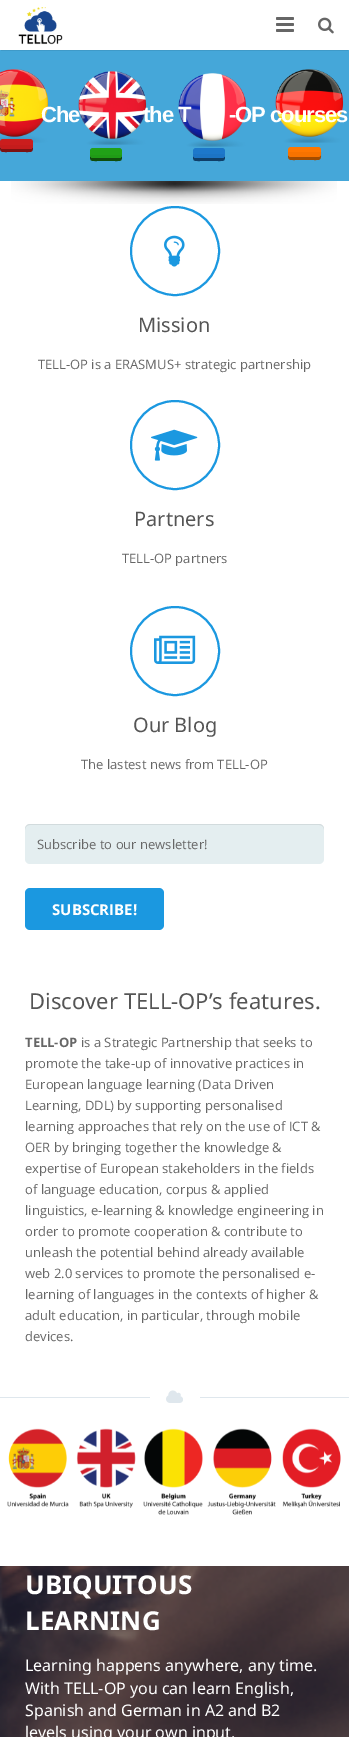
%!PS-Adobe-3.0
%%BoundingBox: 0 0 349 1737
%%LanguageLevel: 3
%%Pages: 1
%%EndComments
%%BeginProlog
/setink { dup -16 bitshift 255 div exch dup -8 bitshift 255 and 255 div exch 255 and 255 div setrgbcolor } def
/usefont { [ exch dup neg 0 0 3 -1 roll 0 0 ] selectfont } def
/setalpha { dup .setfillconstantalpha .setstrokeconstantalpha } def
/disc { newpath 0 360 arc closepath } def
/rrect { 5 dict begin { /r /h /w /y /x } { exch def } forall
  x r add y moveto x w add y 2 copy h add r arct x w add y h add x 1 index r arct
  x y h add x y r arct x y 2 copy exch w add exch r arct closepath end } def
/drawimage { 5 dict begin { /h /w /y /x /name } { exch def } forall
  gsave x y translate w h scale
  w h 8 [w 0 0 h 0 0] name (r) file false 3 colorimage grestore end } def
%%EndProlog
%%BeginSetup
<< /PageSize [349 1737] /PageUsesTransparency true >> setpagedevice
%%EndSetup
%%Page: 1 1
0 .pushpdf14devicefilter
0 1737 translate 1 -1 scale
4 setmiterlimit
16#FFFFFF setink
0 0 349 1737 rectfill
16#45A7D9 setink
0 50 349 131 rectfill
16#3F9AC8 setink
1 50 347 1 rectfill
(img1.raw) 18 7 45 38 drawimage
(img2.raw) 276 17 18 15 drawimage
(img3.raw) 318 17 16 17 drawimage
(img4.raw) 0 69 49 74 drawimage
(img5.raw) 78 71 69 74 drawimage
(img6.raw) 178 73 69 74 drawimage
(img7.raw) 275 69 69 74 drawimage
/LiberationSans-Bold 22 usefont
16#FFFFFF setink
41 122 moveto -1 0 (Che) ashow
143 122 moveto -1 0 (the T) ashow
229 122 moveto -1 0 (-OP courses) ashow
16#7C1212 setink
0 146 moveto 0 152.5 1 152 7.5 152 curveto 25.5 152 lineto 32 152 33 152.5 33 146 curveto 33 147.5 31.5 149 30 149 curveto 3 149 lineto 1.5 149 0 147.5 0 146 curveto closepath fill
16#CB1D1D setink
0 139 33 10 3 rrect fill
0.03 setalpha
16#000000 setink
0 145 33 4 rectfill
1 setalpha
16#104D0B setink
90 155 moveto 90 161.5 90.5 161 97.5 161 curveto 114.5 161 lineto 121.5 161 122 161.5 122 155 curveto 122 156.5 120.5 158 119 158 curveto 93 158 lineto 91.5 158 90 156.5 90 155 curveto closepath fill
16#21A117 setink
90 148 32 10 3 rrect fill
0.04 setalpha
16#000000 setink
90 155 32 3 rectfill
1 setalpha
16#0F3E68 setink
193 155 moveto 193 161.5 193.5 161 200.5 161 curveto 217.5 161 lineto 224.5 161 225 161.5 225 155 curveto 225 156.5 223.5 158 222 158 curveto 196 158 lineto 194.5 158 193 156.5 193 155 curveto closepath fill
16#1D78CB setink
193 148 32 10 3 rrect fill
0.03 setalpha
16#000000 setink
193 154 31 4 rectfill
1 setalpha
16#A34C00 setink
288 154 moveto 288 160.5 289 160 295.5 160 curveto 313.5 160 lineto 320 160 321 160.5 321 154 curveto 321 155.5 319.5 157 318 157 curveto 291 157 lineto 289.5 157 288 155.5 288 154 curveto closepath fill
16#FF7700 setink
288 147 33 10 3 rrect fill
0.03 setalpha
16#000000 setink
288 152 34 5 rectfill
1 setalpha
(img8.raw) 11 181 326 23 drawimage
16#1B98E0 setink
2 setlinewidth
175 251 44 disc stroke
(img9.raw) 164 235 21 32 drawimage
/NotoSans-Regular 20 usefont
16#555555 setink
138 332 moveto (Mission) show
/OpenSans-Regular 13 usefont
16#666666 setink
38 369 moveto (TELL-OP is a ERASMUS+ strategic partnership) show
16#1B98E0 setink
175 445 44 disc stroke
(img10.raw) 151 429 47 32 drawimage
/NotoSans-Regular 20 usefont
16#555555 setink
134 526 moveto (Partners) show
/OpenSans-Regular 13 usefont
16#666666 setink
122 563 moveto (TELL-OP partners) show
16#1B98E0 setink
175 651 44 disc stroke
(img11.raw) 154 635 42 29 drawimage
/NotoSans-Regular 20 usefont
16#555555 setink
133 732 moveto (Our Blog) show
/OpenSans-Regular 13 usefont
16#666666 setink
81 769 moveto (The lastest news from TELL-OP) show
16#E4EEF0 setink
25 824 299 40 5 rrect fill
0.08 setalpha
16#000000 setink
30 825 moveto 319 825 lineto 322 825 324 827 324 830 curveto 324 829 lineto 324 826 322 824 319 824 curveto 30 824 lineto 27 824 25 826 25 829 curveto 25 830 lineto 25 827 27 825 30 825 curveto closepath fill
1 setalpha
16#666666 setink
37 849 moveto (Subscribe to our newsletter!) show
16#1B98E0 setink
25 888 139 42 5 rrect fill
/OpenSans-Bold 15 usefont
16#FFFFFF setink
52 915 moveto (SUBSCRIBE!) show
/NotoSans-Regular 22 usefont
16#555555 setink
29 1009 moveto (Discover TELL-OP’s features.) show
/OpenSans-Bold 13 usefont
16#666666 setink
25 1047 moveto (TELL-OP) show
/OpenSans-Regular 13 usefont
[
    [(is a Strategic Partnership that seeks to) 81 1047]
    [(promote the take-up of innovative practices in) 25 1068]
    [(European language learning \(Data Driven) 25 1089]
    [(Learning, DDL\) by supporting personalised) 25 1110]
    [(learning approaches that rely on the use of ICT &) 25 1131]
    [(OER by bringing together the knowledge &) 25 1152]
    [(expertise of European stakeholders in the fields) 25 1173]
    [(of language education, corpus & applied) 25 1194]
    [(linguistics, e-learning & knowledge engineering in) 25 1215]
    [(order to promote cooperation & contribute to) 25 1236]
    [(unleash the potential behind already available) 25 1257]
    [(web 2.0 services to promote the personalised e-) 25 1278]
    [(learning of languages in the contexts of higher &) 25 1299]
    [(adult education, in particular, through mobile) 25 1320]
    [(devices.) 25 1341]
] { aload pop moveto show } forall
16#DFE7ED setink
0 1397 150 1 rectfill
(img12.raw) 166 1390 17 13 drawimage
200 1397 149 1 rectfill
(img13.raw) 7 1428 334 87 drawimage
(img14.raw) 0 1566 349 171 drawimage
/NotoSans-Bold 26 usefont
16#FFFFFF setink
25 1594 moveto (UBIQUITOUS) show
25 1630 moveto (LEARNING) show
/NotoSans-Regular 16 usefont
[
    [(Learning happens anywhere, any time.) 25 1671]
    [(With TELL-OP you can learn English,) 25 1694]
    [(Spanish and German in A2 and B2) 25 1716]
    [(levels using your own input.) 25 1738]
] { aload pop moveto show } forall
.poppdf14devicefilter showpage
%%EOF
